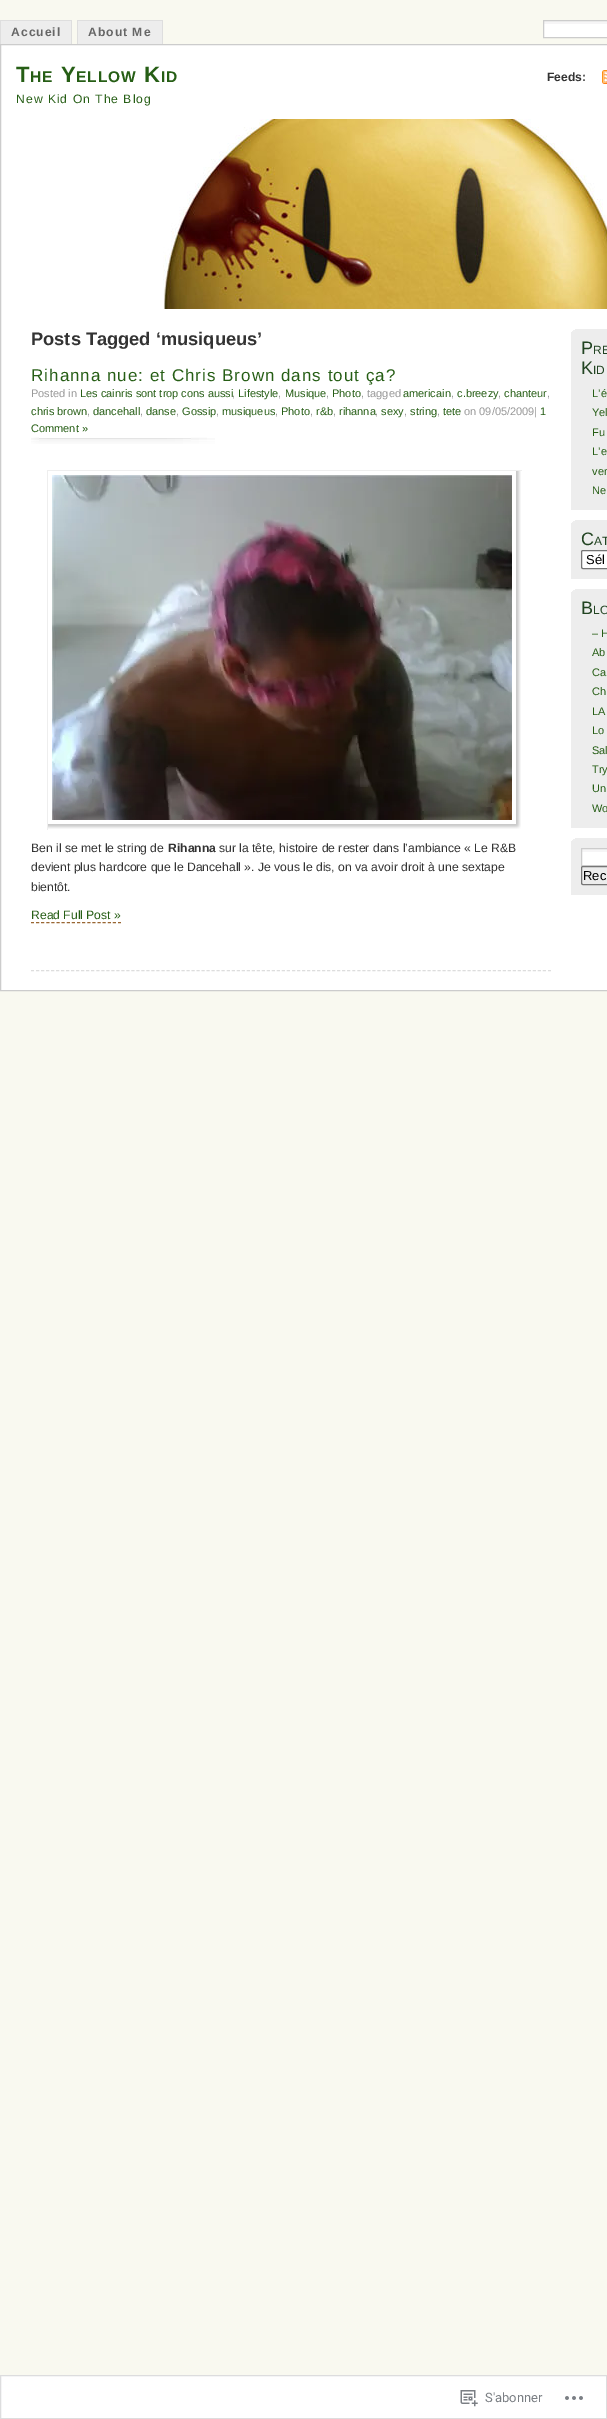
%!PS-Adobe-3.0
%%BoundingBox: 0 0 607 2419
%%LanguageLevel: 3
%%Pages: 1
%%EndComments
%%BeginProlog
/setink { dup -16 bitshift 255 div exch dup -8 bitshift 255 and 255 div exch 255 and 255 div setrgbcolor } def
/usefont { [ exch dup neg 0 0 3 -1 roll 0 0 ] selectfont } def
/rrect { 5 dict begin { /r /h /w /y /x } { exch def } forall
  x r add y moveto x w add y 2 copy h add r arct x w add y h add x 1 index r arct
  x y h add x y r arct x y 2 copy exch w add exch r arct closepath end } def
/drawimage { 5 dict begin { /h /w /y /x /name } { exch def } forall
  gsave x y translate w h scale
  w h 8 [w 0 0 h 0 0] name (r) file false 3 colorimage grestore end } def
%%EndProlog
%%BeginSetup
<< /PageSize [607 2419] >> setpagedevice
%%EndSetup
%%Page: 1 1
0 2419 translate 1 -1 scale
4 setmiterlimit
16#F9F9F0 setink
0 0 607 2419 rectfill
[
    [1 21 70 23 16#EDEDED]
    [0 20 72 1 16#DEDEDE]
    [71 20 1 24 16#DEDEDE]
    [0 20 1 24 16#DEDEDE]
] { aload pop setink rectfill } forall
/LiberationSans-Bold 12.15 usefont
16#666666 setink
11 36 moveto 1 0 (Accueil) ashow
[
    [78 21 84 23 16#EDEDED]
    [77 20 86 1 16#DEDEDE]
    [162 20 1 24 16#DEDEDE]
    [77 20 1 24 16#DEDEDE]
] { aload pop setink rectfill } forall
16#666666 setink
88 36 moveto 1 0 (About Me) ashow
16#FFFFFF setink
544 24 63 13 rectfill
16#F6F5F6 setink
543 21 64 3 rectfill
16#CCCCCC setink
543.5 20.5 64 17 rectstroke
16#FFFFFF setink
0.5 44.5 moveto 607.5 44.5 lineto 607.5 990.5 lineto 0.5 990.5 lineto closepath gsave fill grestore
16#CCCCCC setink
stroke
/LiberationSans-Bold 22 usefont
16#265E15 setink
16 82 moveto 1 0 (T) ashow
/LiberationSans-Bold 15.5 usefont
30 82 moveto 1 0 (HE) ashow
/LiberationSans-Bold 22 usefont
61 82 moveto 1 0 (Y) ashow
/LiberationSans-Bold 15.5 usefont
76 82 moveto 1 0 (ELLOW) ashow
/LiberationSans-Bold 22 usefont
144 82 moveto 1 0 (K) ashow
/LiberationSans-Bold 15.5 usefont
161 82 moveto 1 0 (ID) ashow
/LiberationSans-Regular 12.15 usefont
16 103 moveto 1 0 (New Kid On The Blog) ashow
/LiberationSans-Bold 12.15 usefont
16#333333 setink
547 81 moveto (Feeds:) show
(img1.raw) 602 70 5 14 drawimage
(img2.raw) 163 119 444 190 drawimage
/LiberationSans-Bold 18.25 usefont
31 345 moveto (Posts Tagged ‘musiqueus’) show
16#DDDDDD setink
[3 2.02] 0 setdash
31 970.5 moveto 551 970.5 lineto stroke
/LiberationSans-Regular 17 usefont
16#265E15 setink
31 381 moveto 1 0 (Rihanna nue: et Chris Brown dans tout ça?) ashow
(img3.raw) 31 437 184 7 drawimage
/LiberationSans-Regular 11 usefont
16#999999 setink
31 397 moveto (Posted in) show
16#265E15 setink
80 397 moveto (Les cainris sont trop cons aussi) show
16#999999 setink
232 397 moveto (,) show
16#265E15 setink
238 397 moveto (Lifestyle) show
16#999999 setink
278 397 moveto (,) show
16#265E15 setink
285 397 moveto (Musique) show
16#999999 setink
326 397 moveto (,) show
16#265E15 setink
332 397 moveto (Photo) show
16#999999 setink
361 397 moveto (, tagged) show
16#265E15 setink
403 397 moveto (americain) show
16#999999 setink
451 397 moveto (,) show
16#265E15 setink
457 397 moveto (c.breezy) show
16#999999 setink
498 397 moveto (,) show
16#265E15 setink
504 397 moveto (chanteur) show
16#999999 setink
547 397 moveto (,) show
16#265E15 setink
31 415 moveto (chris brown) show
16#999999 setink
87 415 moveto (,) show
16#265E15 setink
93 415 moveto (dancehall) show
16#999999 setink
140 415 moveto (,) show
16#265E15 setink
146 415 moveto (danse) show
16#999999 setink
176 415 moveto (,) show
16#265E15 setink
182 415 moveto (Gossip) show
16#999999 setink
216 415 moveto (,) show
16#265E15 setink
222 415 moveto (musiqueus) show
16#999999 setink
275 415 moveto (,) show
16#265E15 setink
281 415 moveto (Photo) show
16#999999 setink
310 415 moveto (,) show
16#265E15 setink
316 415 moveto (r&b) show
16#999999 setink
333 415 moveto (,) show
16#265E15 setink
339 415 moveto (rihanna) show
16#999999 setink
375 415 moveto (,) show
16#265E15 setink
381 415 moveto (sexy) show
16#999999 setink
404 415 moveto (,) show
16#265E15 setink
410 415 moveto (string) show
16#999999 setink
437 415 moveto (,) show
16#265E15 setink
443 415 moveto (tete) show
16#999999 setink
464 415 moveto (on 09/05/2009|) show
16#265E15 setink
540 415 moveto (1) show
31 432 moveto (Comment ») show
(img4.raw) 48 471 473 358 drawimage
16#EEEEEE setink
47 470 475 1 rectfill
47 470 1 360 rectfill
/LiberationSans-Regular 12.15 usefont
16#333333 setink
31 852 moveto (Ben il se met le string de) show
/LiberationSans-Bold 12.15 usefont
168 852 moveto (Rihanna) show
/LiberationSans-Regular 12.15 usefont
[
    [(sur la tête, histoire de rester dans l’ambiance « Le R&B) 219 852]
    [(devient plus hardcore que le Dancehall ». Je vous le dis, on va avoir droit à une sextape) 31 871]
    [(bientôt.) 31 891]
] { aload pop moveto show } forall
16#265E15 setink
31 919 moveto (Read Full Post ») show
16#996633 setink
[3 2.12] 0 setdash
31 922.5 moveto 121 922.5 lineto stroke
16#EDEDED setink
571 329 36 181 rectfill
(img5.raw) 571 329 4 3 drawimage
/LiberationSans-Regular 18 usefont
16#224422 setink
581 354 moveto (P) show
/LiberationSans-Regular 12 usefont
593 354 moveto (RE) show
/LiberationSans-Regular 18 usefont
581 374 moveto (K) show
/LiberationSans-Regular 12 usefont
593 374 moveto (ID) show
/LiberationSans-Regular 11 usefont
16#265E15 setink
[
    [(L’é) 592 397]
    [(Yel) 592 416]
    [(Fu) 592 436]
    [(L’e) 592 455]
    [(ver) 592 475]
    [(Ne) 592 494]
] { aload pop moveto show } forall
16#EDEDED setink
571 520 36 59 rectfill
(img5.raw) 571 520 4 3 drawimage
/LiberationSans-Regular 18 usefont
16#224422 setink
581 545 moveto (C) show
/LiberationSans-Regular 12 usefont
594 545 moveto (AT) show
16#FFFFFF setink
583 550 moveto 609 550 lineto 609 569 lineto 583 569 lineto 582 569 581 568 581 567 curveto 581 552 lineto 581 551 582 550 583 550 curveto closepath fill
16#767676 setink
[] 0 setdash
581.5 550.5 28 18 1.5 rrect stroke
/LiberationSans-Regular 13 usefont
16#000000 setink
586 564 moveto (Sél) show
16#EDEDED setink
571 589 36 239 rectfill
(img5.raw) 571 589 4 3 drawimage
/LiberationSans-Regular 18 usefont
16#224422 setink
581 614 moveto (B) show
/LiberationSans-Regular 12 usefont
593 614 moveto (LO) show
/LiberationSans-Regular 11 usefont
16#265E15 setink
[
    [(– H) 592 637]
    [(Ab) 592 656]
    [(Ca) 592 676]
    [(Ch) 592 695]
    [(LA) 592 715]
    [(Lo) 592 734]
    [(Sal) 592 754]
    [(Try) 592 773]
    [(Un) 592 792]
    [(Wo) 592 812]
] { aload pop moveto show } forall
16#EDEDED setink
571 838 36 57 rectfill
(img5.raw) 571 838 4 3 drawimage
16#FFFFFF setink
582 852 25 13 rectfill
16#F6F5F6 setink
581 849 26 3 rectfill
16#CCCCCC setink
581.5 848.5 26 17 rectstroke
16#767676 setink
581.5 866.5 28 18 1.5 rrect stroke
/LiberationSans-Regular 13 usefont
16#000000 setink
583 880 moveto (Rec) show
16#FFFFFF setink
0.5 2375.5 moveto 606.5 2375.5 lineto 606.5 2418.5 lineto 0.5 2418.5 lineto closepath gsave fill grestore
16#DDDDDE setink
stroke
(img6.raw) 460 2390 18 17 drawimage
/Roboto-Regular 13 usefont
16#7B7F84 setink
485 2402 moveto (S'abonner) show
(img7.raw) 565 2396 18 4 drawimage
showpage
%%EOF
